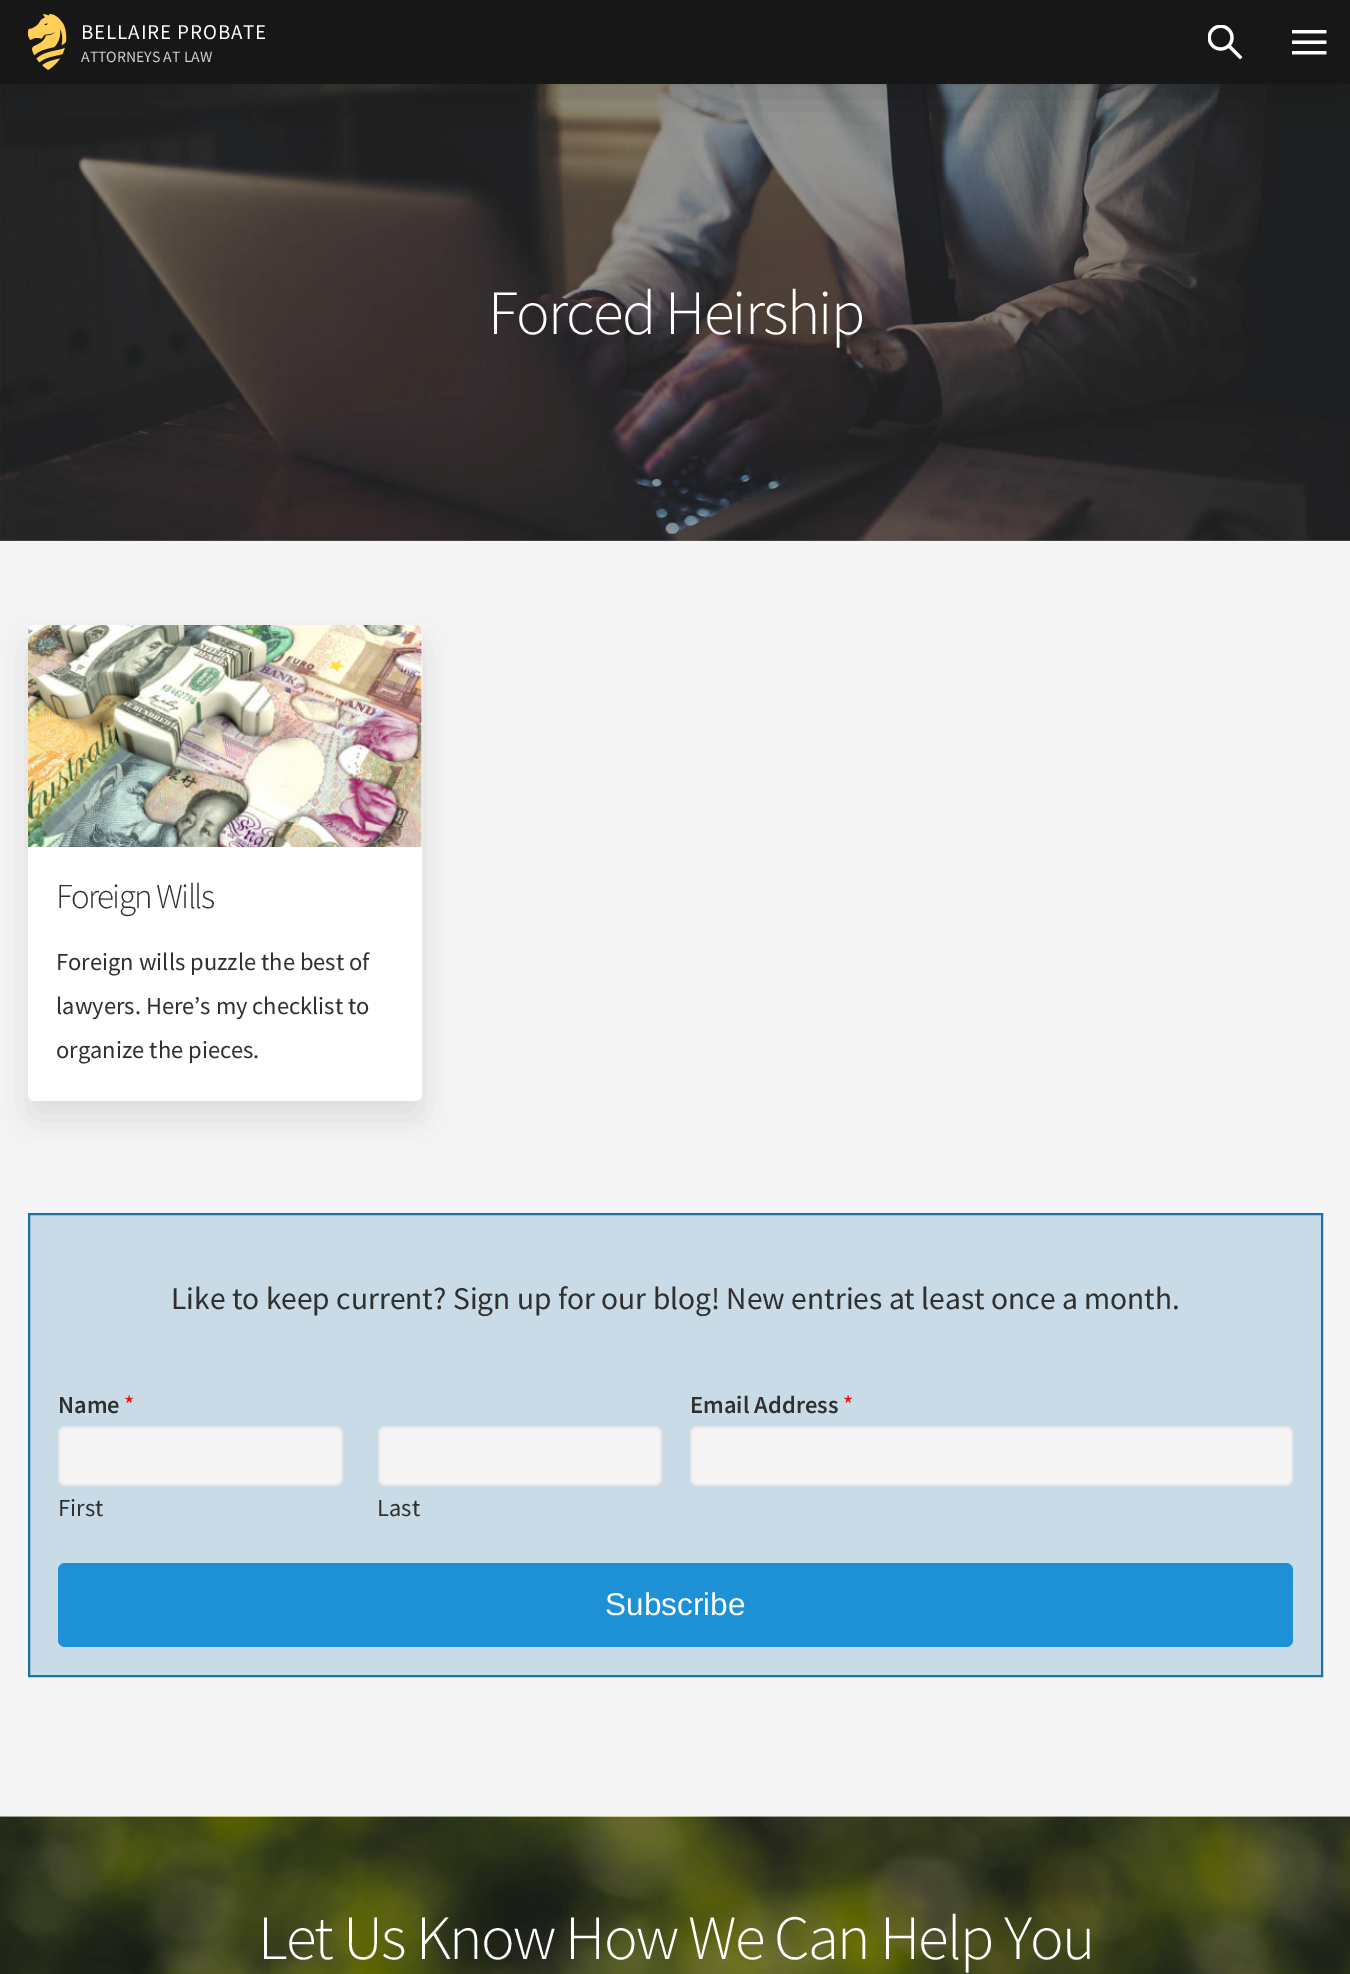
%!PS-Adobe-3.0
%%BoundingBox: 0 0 1350 1974
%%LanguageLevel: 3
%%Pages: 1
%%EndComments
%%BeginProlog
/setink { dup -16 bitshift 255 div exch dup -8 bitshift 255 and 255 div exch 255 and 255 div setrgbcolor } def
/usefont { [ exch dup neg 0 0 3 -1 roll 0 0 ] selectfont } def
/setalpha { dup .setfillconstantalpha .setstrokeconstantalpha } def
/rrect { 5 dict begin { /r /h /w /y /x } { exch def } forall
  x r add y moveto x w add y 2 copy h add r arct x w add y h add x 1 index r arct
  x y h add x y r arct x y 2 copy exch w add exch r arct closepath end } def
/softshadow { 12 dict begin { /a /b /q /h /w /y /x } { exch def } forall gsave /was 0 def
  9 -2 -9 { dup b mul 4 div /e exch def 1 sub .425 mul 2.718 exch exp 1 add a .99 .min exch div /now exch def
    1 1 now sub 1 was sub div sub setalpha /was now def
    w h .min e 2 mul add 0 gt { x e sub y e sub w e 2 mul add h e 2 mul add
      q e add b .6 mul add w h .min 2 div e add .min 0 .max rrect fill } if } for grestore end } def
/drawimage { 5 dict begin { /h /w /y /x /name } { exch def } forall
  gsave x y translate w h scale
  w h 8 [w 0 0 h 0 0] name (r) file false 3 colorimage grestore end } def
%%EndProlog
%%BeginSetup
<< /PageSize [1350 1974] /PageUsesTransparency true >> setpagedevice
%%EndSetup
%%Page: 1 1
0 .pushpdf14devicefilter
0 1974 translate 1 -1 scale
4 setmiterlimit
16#FFFFFF setink
0 0 1350 1974 rectfill
(img4.raw) 0 84 1350 457 drawimage
16#000000 setink
0 9 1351 84 0 26 0.2 softshadow
16#171717 setink
0 0 1350 84 rectfill
(img1.raw) 28 14 39 56 drawimage
/SourceSansPro-Regular 21 usefont
16#FFFFFF setink
81 39 moveto 0.9 0 (BELLAIRE PROBATE) ashow
/SourceSansPro-Regular 15.75 usefont
16#CFCFCF setink
81 62 moveto (ATTORNEYS AT LAW) show
(img2.raw) 1208 25 35 35 drawimage
(img3.raw) 1292 30 35 25 drawimage
/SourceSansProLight-Light 63 usefont
16#FFFFFF setink
488 334 moveto -1.75 0 (Forced Heirship) ashow
16#F5F5F5 setink
0 541 1350 1276 rectfill
16#000000 setink
28 642 394 476 7 17.5 0.1 softshadow
16#FFFFFF setink
28 625 394 476 7 rrect fill
(img5.raw) 28 625 394 222 drawimage
/SourceSansProLight-Light 35 usefont
16#303030 setink
56 908 moveto -1.75 0 (Foreign Wills) ashow
/SourceSansPro-Regular 24.5 usefont
[
    [(Foreign wills puzzle the best of) 56 970]
    [(lawyers. Here’s my checklist to) 56 1014]
    [(organize the pieces.) 56 1058]
] { aload pop moveto show } forall
16#C9DBE6 setink
29 1214 moveto 1322 1214 lineto 1322 1676 lineto 29 1676 lineto closepath gsave fill grestore
16#1873A9 setink
2 setlinewidth
stroke
/SourceSansPro-Regular 31.5 usefont
16#303030 setink
171 1309 moveto (Like to keep current? Sign up for our blog! New entries at least once a month.) show
/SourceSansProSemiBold-SemiBold 24.5 usefont
58 1413 moveto (Name) show
/SourceSansPro-Regular 24.5 usefont
16#FF0000 setink
124 1413 moveto (*) show
16#F5F5F5 setink
59 1427 283 58 6 rrect gsave fill grestore
16#E8E8E8 setink
stroke
16#303030 setink
58 1516 moveto (First) show
16#F5F5F5 setink
379 1427 282 58 6 rrect gsave fill grestore
16#E8E8E8 setink
stroke
16#303030 setink
377 1516 moveto (Last) show
/SourceSansProSemiBold-SemiBold 24.5 usefont
690 1413 moveto (Email Address) show
/SourceSansPro-Regular 24.5 usefont
16#FF0000 setink
843 1413 moveto (*) show
16#F5F5F5 setink
691 1427 601 58 6 rrect gsave fill grestore
16#E8E8E8 setink
stroke
16#1E91D6 setink
58 1563 1235 84 7 rrect fill
/LiberationSans-Regular 31.5 usefont
16#FFFFFF setink
605 1615 moveto (Subscribe) show
(img6.raw) 0 1816 1350 158 drawimage
/SourceSansProLight-Light 63 usefont
258 1959 moveto -1.75 0 (Let Us Know How We Can Help You) ashow
.poppdf14devicefilter showpage
%%EOF
